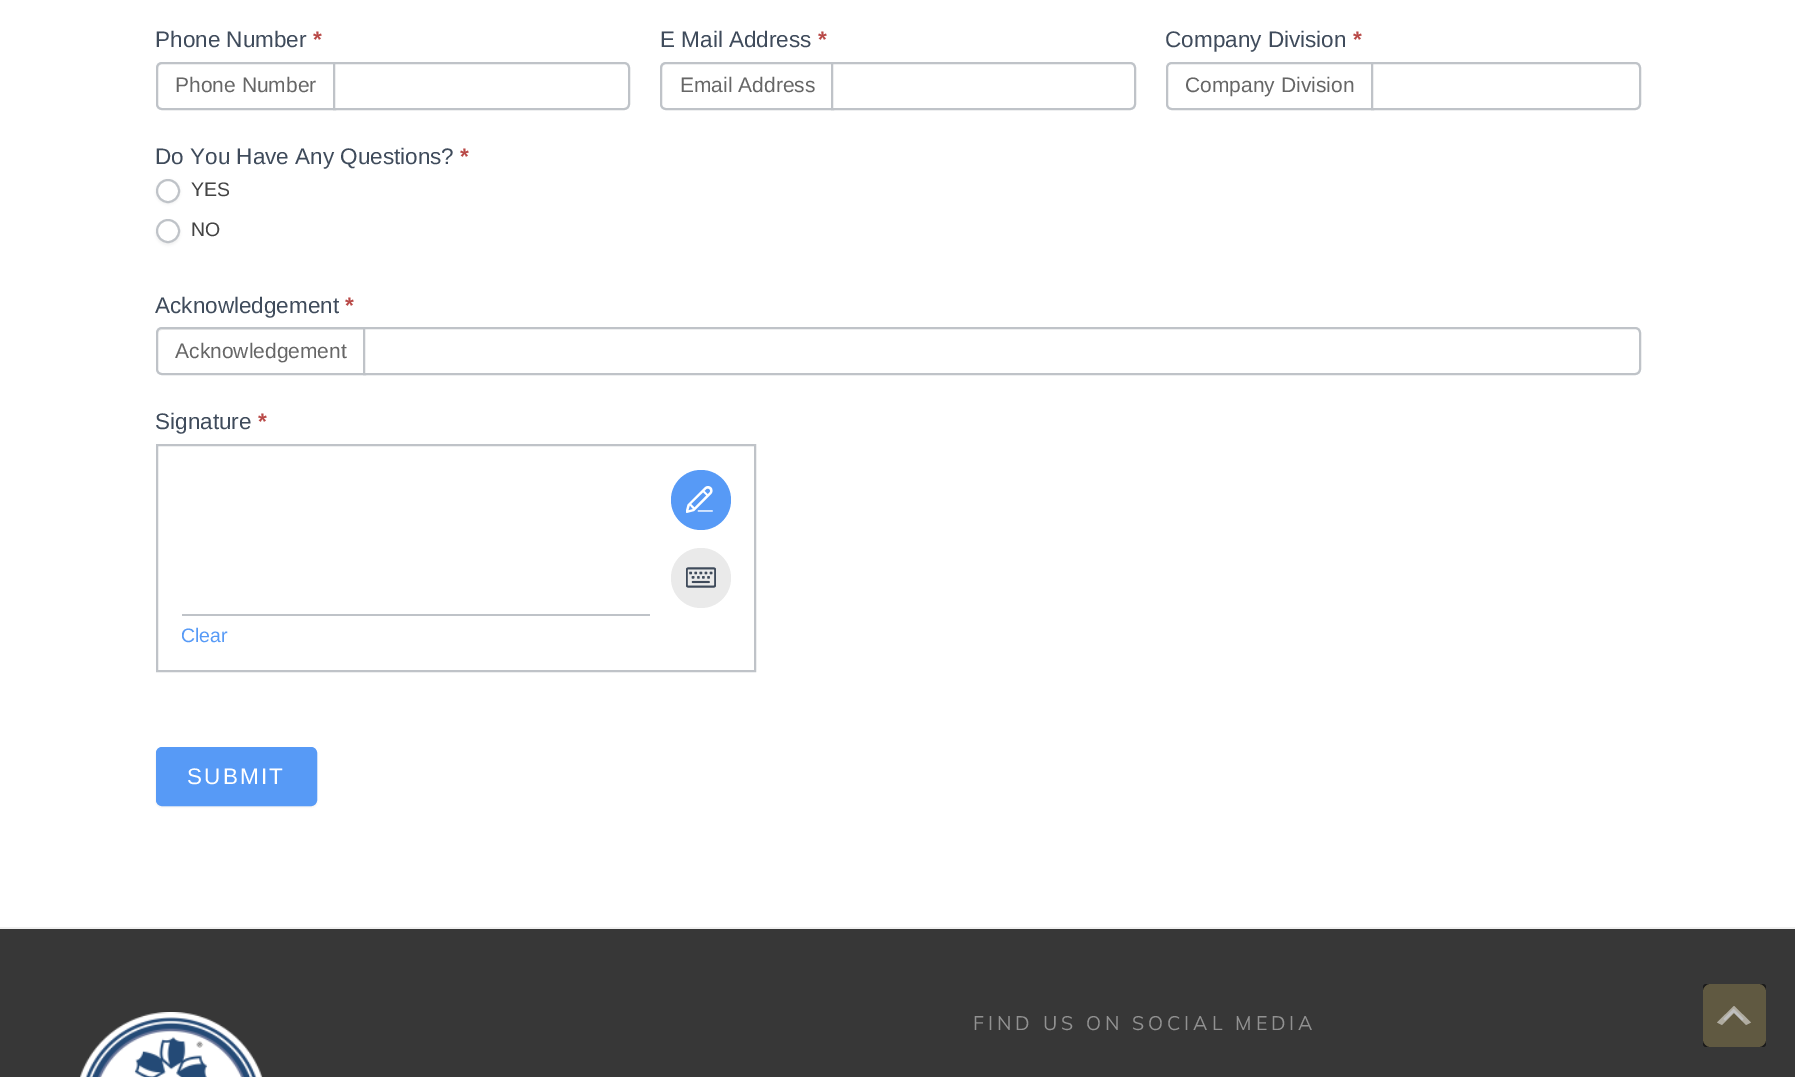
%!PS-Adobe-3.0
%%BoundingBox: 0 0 1795 1077
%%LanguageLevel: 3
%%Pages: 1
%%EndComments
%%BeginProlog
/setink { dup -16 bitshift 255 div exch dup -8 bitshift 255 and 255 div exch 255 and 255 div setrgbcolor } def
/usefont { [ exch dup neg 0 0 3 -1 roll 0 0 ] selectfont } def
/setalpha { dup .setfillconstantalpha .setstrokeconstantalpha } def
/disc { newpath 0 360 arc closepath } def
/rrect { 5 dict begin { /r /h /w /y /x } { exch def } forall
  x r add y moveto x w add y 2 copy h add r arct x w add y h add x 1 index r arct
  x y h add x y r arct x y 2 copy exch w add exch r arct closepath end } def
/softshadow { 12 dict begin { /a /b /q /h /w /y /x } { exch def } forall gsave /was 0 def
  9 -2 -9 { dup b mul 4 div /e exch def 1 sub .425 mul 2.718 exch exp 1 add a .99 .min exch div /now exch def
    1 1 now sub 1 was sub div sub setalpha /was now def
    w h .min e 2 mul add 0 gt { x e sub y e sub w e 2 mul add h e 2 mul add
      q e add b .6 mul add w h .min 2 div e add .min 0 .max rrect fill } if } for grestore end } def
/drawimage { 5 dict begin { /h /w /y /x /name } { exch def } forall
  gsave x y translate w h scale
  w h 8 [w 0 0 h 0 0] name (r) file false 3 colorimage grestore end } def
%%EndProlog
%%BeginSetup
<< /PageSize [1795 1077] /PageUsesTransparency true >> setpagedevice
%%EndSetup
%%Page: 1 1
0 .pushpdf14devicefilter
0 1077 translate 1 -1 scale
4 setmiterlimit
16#FFFFFF setink
0 0 1795 1077 rectfill
16#F0F0F0 setink
0 927 1795 2 rectfill
/LiberationSans-Regular 22.5 usefont
16#3F4B5B setink
155 47 moveto (Phone Number) show
/LiberationSans-Bold 22.5 usefont
16#B94A48 setink
313 47 moveto (*) show
16#ECECEC setink
162 64 moveto 334 64 lineto 334 108 lineto 335 108 lineto 335 63 lineto 163 63 lineto 160 63 158 66 158 69 curveto 158 67 160 64 162 64 curveto closepath fill
16#BFC3C8 setink
2 setlinewidth
162 63 moveto 335 63 lineto 335 109 lineto 162 109 lineto 159 109 157 107 157 104 curveto 157 68 lineto 157 65 159 63 162 63 curveto closepath stroke
/LiberationSans-Regular 21 usefont
16#666666 setink
175 92 moveto (Phone Number) show
16#FFFFFF setink
334 63 moveto 624 63 lineto 627 63 629 65 629 68 curveto 629 104 lineto 629 107 627 109 624 109 curveto 334 109 lineto closepath gsave fill grestore
16#BFC3C8 setink
stroke
/LiberationSans-Regular 22.5 usefont
16#3F4B5B setink
660 47 moveto (E Mail Address) show
/LiberationSans-Bold 22.5 usefont
16#B94A48 setink
818 47 moveto (*) show
16#ECECEC setink
666 64 moveto 832 64 lineto 832 108 lineto 833 108 lineto 833 63 lineto 667 63 lineto 664 63 662 65 662 68 curveto 662 69 lineto 662 67 664 64 666 64 curveto closepath fill
16#BFC3C8 setink
666 63 moveto 833 63 lineto 833 109 lineto 666 109 lineto 663 109 661 107 661 104 curveto 661 68 lineto 661 65 663 63 666 63 curveto closepath stroke
/LiberationSans-Regular 21 usefont
16#666666 setink
680 92 moveto (Email Address) show
16#FFFFFF setink
832 63 moveto 1130 63 lineto 1133 63 1135 65 1135 68 curveto 1135 104 lineto 1135 107 1133 109 1130 109 curveto 832 109 lineto closepath gsave fill grestore
16#BFC3C8 setink
stroke
/LiberationSans-Regular 22.5 usefont
16#3F4B5B setink
1165 47 moveto (Company Division) show
/LiberationSans-Bold 22.5 usefont
16#B94A48 setink
1353 47 moveto (*) show
16#BFC3C8 setink
1172 63 moveto 1373 63 lineto 1373 109 lineto 1172 109 lineto 1169 109 1167 107 1167 104 curveto 1167 68 lineto 1167 65 1169 63 1172 63 curveto closepath stroke
/LiberationSans-Regular 21 usefont
16#666666 setink
1185 92 moveto (Company Division) show
16#FFFFFF setink
1372 63 moveto 1635 63 lineto 1638 63 1640 65 1640 68 curveto 1640 104 lineto 1640 107 1638 109 1635 109 curveto 1372 109 lineto closepath gsave fill grestore
16#BFC3C8 setink
stroke
/LiberationSans-Regular 22.5 usefont
16#3F4B5B setink
155 164 moveto (Do You Have Any Questions?) show
/LiberationSans-Bold 22.5 usefont
16#B94A48 setink
460 164 moveto (*) show
16#121217 setink
156 180 24 24 12 1.5 0.05 softshadow
16#FFFFFF setink
168 191 11 disc gsave fill grestore
16#BFC3C8 setink
stroke
/LiberationSans-Regular 19.5 usefont
16#444444 setink
191 196 moveto (YES) show
16#121217 setink
156 221 24 24 12 1.5 0.05 softshadow
16#FFFFFF setink
168 231 11 disc gsave fill grestore
16#BFC3C8 setink
stroke
16#444444 setink
191 236 moveto (NO) show
/LiberationSans-Regular 22.5 usefont
16#3F4B5B setink
155 313 moveto (Acknowledgement) show
/LiberationSans-Bold 22.5 usefont
16#B94A48 setink
345 313 moveto (*) show
16#ECECEC setink
162 330 moveto 364 330 lineto 364 374 lineto 365 374 lineto 365 329 lineto 163 329 lineto 160 329 158 331 158 334 curveto 158 332 160 330 162 330 curveto closepath fill
16#BFC3C8 setink
162 328 moveto 365 328 lineto 365 374 lineto 162 374 lineto 159 374 157 372 157 369 curveto 157 333 lineto 157 330 159 328 162 328 curveto closepath stroke
/LiberationSans-Regular 21 usefont
16#666666 setink
175 358 moveto (Acknowledgement) show
16#FFFFFF setink
364 328 moveto 1635 328 lineto 1638 328 1640 330 1640 333 curveto 1640 369 lineto 1640 372 1638 374 1635 374 curveto 364 374 lineto closepath gsave fill grestore
16#BFC3C8 setink
stroke
/LiberationSans-Regular 22.5 usefont
16#3F4B5B setink
155 429 moveto (Signature) show
/LiberationSans-Bold 22.5 usefont
16#B94A48 setink
258 429 moveto (*) show
16#BFC3C8 setink
157 445 598 226 rectstroke
16#579AF6 setink
701 500 30 disc fill
(img1.raw) 686 486 27 27 drawimage
16#EAEAEA setink
701 578 30 disc fill
(img2.raw) 686 567 30 21 drawimage
16#BFC3C8 setink
182 614 468 2 rectfill
/LiberationSans-Regular 19.5 usefont
16#579AF6 setink
181 642 moveto (Clear) show
16#EEEEEE setink
156 749 161 58 6 1 1 softshadow
16#579AF6 setink
157 748 159 57 5 rrect gsave fill grestore
stroke
/LiberationSans-Regular 22.5 usefont
16#FFFFFF setink
187 784 moveto 2.25 0 (SUBMIT) ashow
16#373737 setink
0 929 1795 148 rectfill
(img3.raw) 80 1012 183 65 drawimage
/Muli-Regular 19.5 usefont
16#919191 setink
973 1030 moveto 3.9 0 (FIND US ON SOCIAL MEDIA) ashow
16#C0B283 setink
1703 984 63 63 8 rrect fill
(img4.raw) 1723 1009 21 12 drawimage
0.5 setalpha
16#000000 setink
1703 984 63 63 3 rrect fill
16#FFFFFF setink
1746 1025 moveto 1734 1013 lineto 1722 1025 lineto 1717 1022.5 lineto 1734 1006 lineto 1751 1022.5 lineto closepath fill
.poppdf14devicefilter showpage
%%EOF
